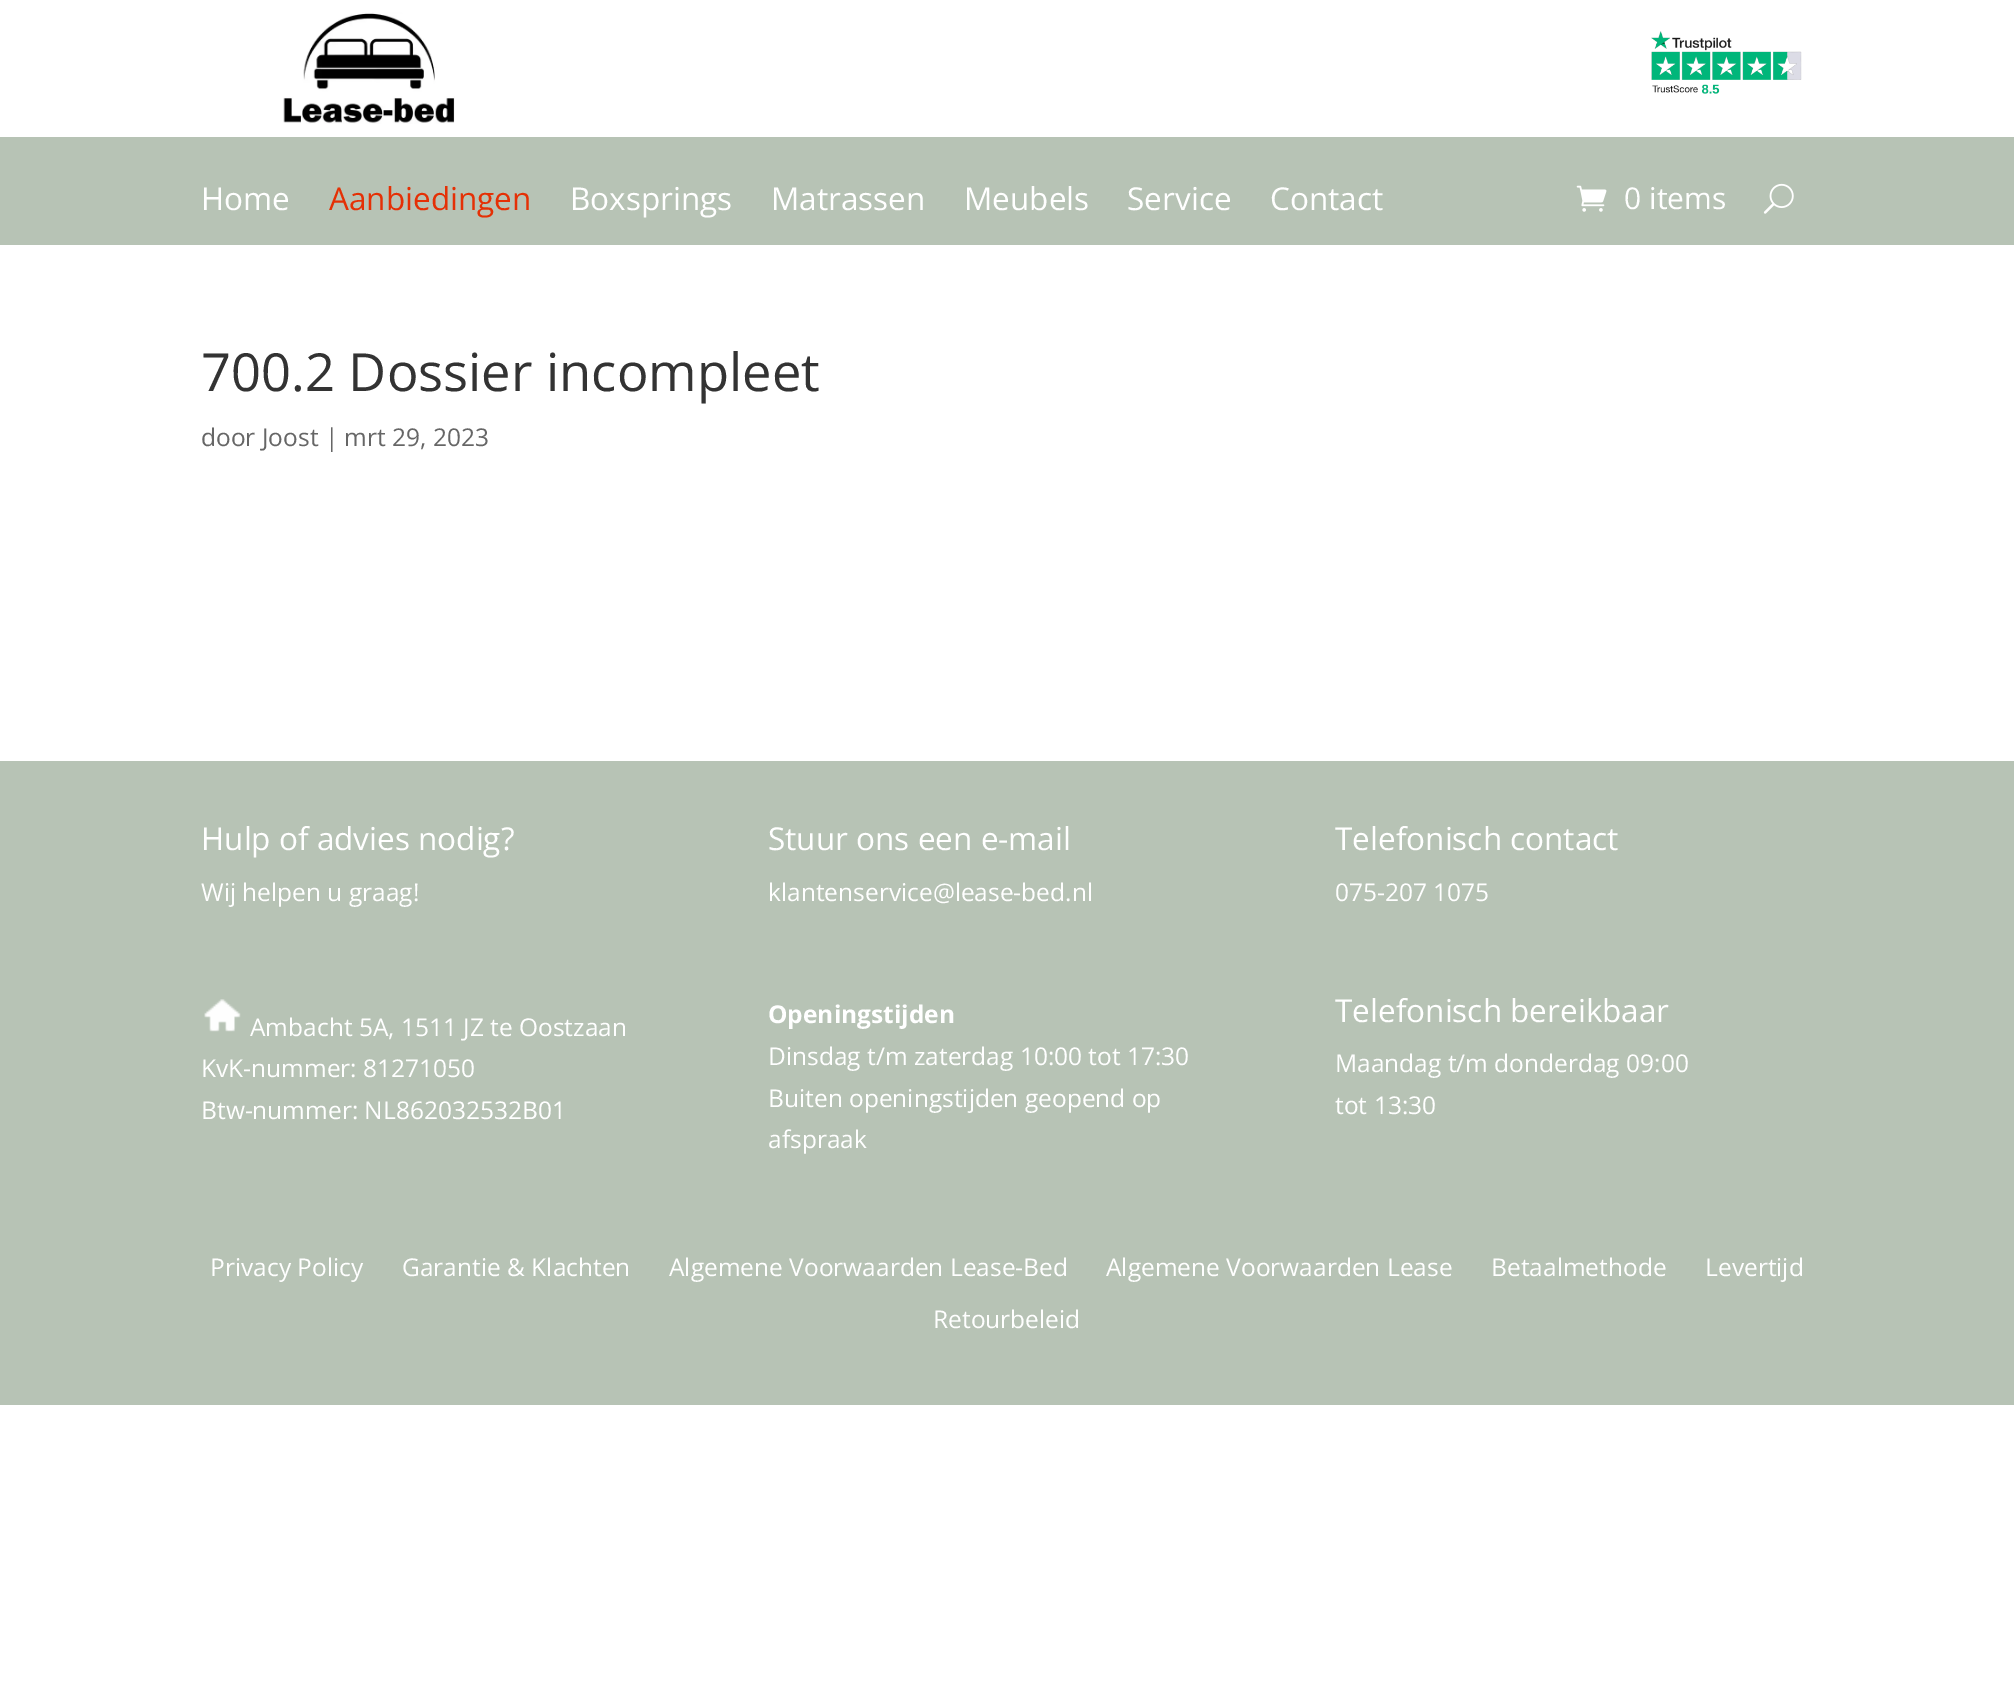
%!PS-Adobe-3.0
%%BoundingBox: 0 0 2014 1685
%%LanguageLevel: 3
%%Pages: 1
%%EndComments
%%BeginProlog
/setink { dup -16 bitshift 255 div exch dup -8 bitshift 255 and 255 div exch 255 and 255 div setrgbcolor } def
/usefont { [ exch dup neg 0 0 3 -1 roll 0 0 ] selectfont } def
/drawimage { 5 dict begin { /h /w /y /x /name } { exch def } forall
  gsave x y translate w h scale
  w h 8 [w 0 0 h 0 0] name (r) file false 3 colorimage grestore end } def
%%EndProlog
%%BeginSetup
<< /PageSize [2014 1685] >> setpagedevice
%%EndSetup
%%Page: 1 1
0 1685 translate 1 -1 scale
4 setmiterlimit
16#FFFFFF setink
0 0 2014 1685 rectfill
(img1.raw) 283 12 172 112 drawimage
(img2.raw) 1651 31 151 63 drawimage
16#B7C3B5 setink
0 137 2014 108 rectfill
/OpenSans-Regular 31.5 usefont
16#FFFFFF setink
201 210 moveto (Home) show
16#E53005 setink
329 210 moveto (Aanbiedingen) show
16#FFFFFF setink
[
    [(Boxsprings) 570 210]
    [(Matrassen) 771 210]
    [(Meubels) 964 210]
    [(Service) 1127 210]
    [(Contact) 1270 210]
] { aload pop moveto show } forall
(img3.raw) 1576 185 31 27 drawimage
/OpenSans-Regular 30 usefont
1624 209 moveto (0 items) show
(img4.raw) 1763 183 31 31 drawimage
/OpenSans-Regular 52.5 usefont
16#333333 setink
201 391 moveto (700.2 Dossier incompleet) show
/OpenSans-Regular 24.5 usefont
16#666666 setink
201 446 moveto (door Joost | mrt 29, 2023) show
16#B7C3B5 setink
0 761 2014 644 rectfill
/OpenSans-Regular 31.5 usefont
16#FFFFFF setink
201 850 moveto (Hulp of advies nodig?) show
/OpenSans-Regular 24.5 usefont
201 901 moveto (Wij helpen u graag!) show
/OpenSans-Regular 31.5 usefont
768 850 moveto (Stuur ons een e-mail) show
/OpenSans-Regular 24.5 usefont
768 901 moveto (klantenservice@lease-bed.nl) show
/OpenSans-Regular 31.5 usefont
1335 850 moveto (Telefonisch contact) show
/OpenSans-Regular 24.5 usefont
1335 901 moveto (075-207 1075) show
(img5.raw) 204 999 37 33 drawimage
[
    [(Ambacht 5A, 1511 JZ te Oostzaan) 250 1036]
    [(KvK-nummer: 81271050) 201 1077]
    [(Btw-nummer: NL862032532B01) 201 1119]
] { aload pop moveto show } forall
/OpenSans-Bold 24.5 usefont
768 1023 moveto (Openingstijden) show
/OpenSans-Regular 24.5 usefont
[
    [(Dinsdag t/m zaterdag 10:00 tot 17:30) 768 1065]
    [(Buiten openingstijden geopend op) 768 1107]
    [(afspraak) 768 1148]
] { aload pop moveto show } forall
/OpenSans-Regular 31.5 usefont
1335 1022 moveto (Telefonisch bereikbaar) show
/OpenSans-Regular 24.5 usefont
[
    [(Maandag t/m donderdag 09:00) 1335 1072]
    [(tot 13:30) 1335 1114]
    [(Privacy Policy) 210 1276]
    [(Garantie & Klachten) 402 1276]
    [(Algemene Voorwaarden Lease-Bed) 669 1276]
    [(Algemene Voorwaarden Lease) 1106 1276]
    [(Betaalmethode) 1491 1276]
    [(Levertijd) 1705 1276]
    [(Retourbeleid) 933 1328]
] { aload pop moveto show } forall
showpage
%%EOF
